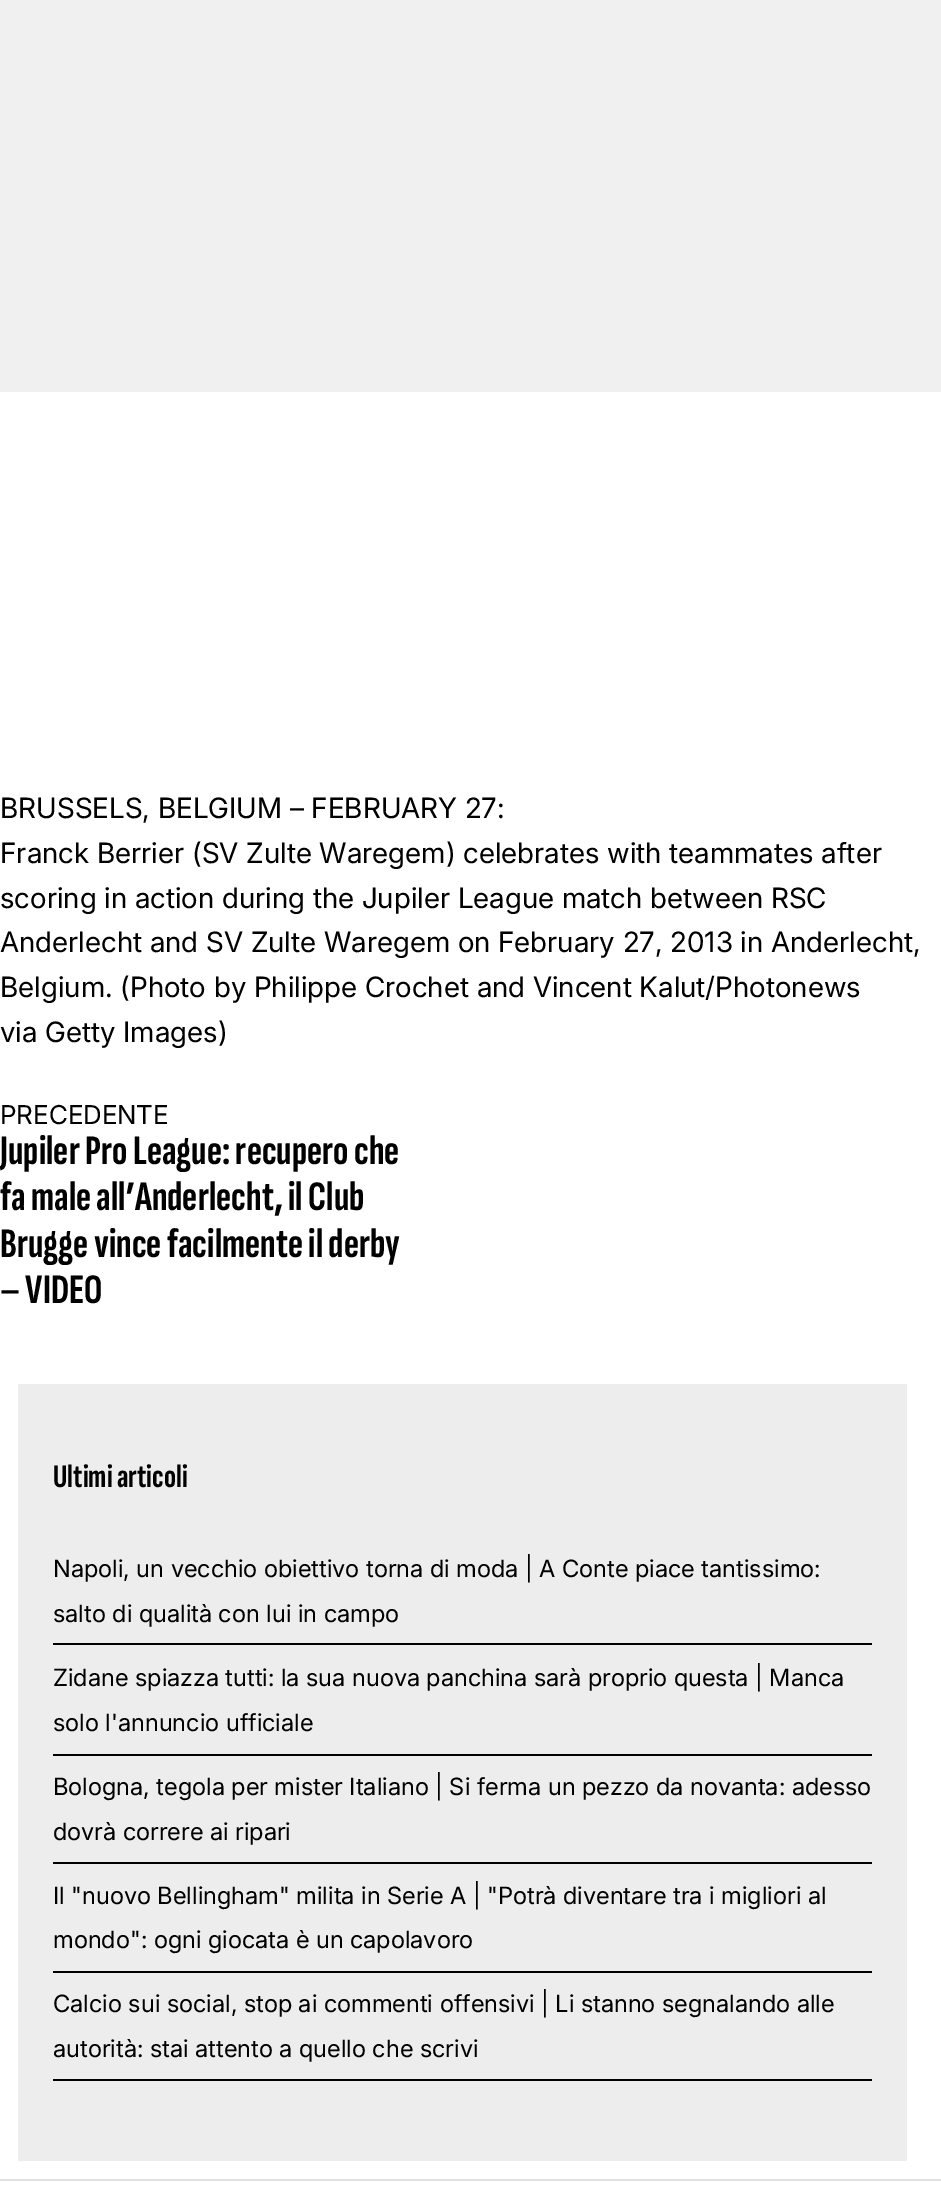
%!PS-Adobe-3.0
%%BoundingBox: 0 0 941 2185
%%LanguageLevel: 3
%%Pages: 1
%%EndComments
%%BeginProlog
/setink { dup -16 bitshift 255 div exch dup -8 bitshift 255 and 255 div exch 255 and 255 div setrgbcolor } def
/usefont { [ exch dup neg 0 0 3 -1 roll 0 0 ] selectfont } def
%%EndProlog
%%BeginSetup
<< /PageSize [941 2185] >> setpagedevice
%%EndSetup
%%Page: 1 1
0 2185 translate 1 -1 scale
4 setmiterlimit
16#FFFFFF setink
0 0 941 2185 rectfill
16#F0F0F0 setink
0 0 941 392 rectfill
/Inter-Regular 28 usefont
16#000000 setink
[
    [(BRUSSELS, BELGIUM – FEBRUARY 27:) 0 818]
    [(Franck Berrier \(SV Zulte Waregem\) celebrates with teammates after) 0 863]
    [(scoring in action during the Jupiler League match between RSC) 0 908]
    [(Anderlecht and SV Zulte Waregem on February 27, 2013 in Anderlecht,) 0 952]
    [(Belgium. \(Photo by Philippe Crochet and Vincent Kalut/Photonews) 0 997]
    [(via Getty Images\)) 0 1042]
] { aload pop moveto show } forall
/Inter-Regular 26 usefont
0 1124 moveto (PRECEDENTE) show
/SofiaSansExtraCondensed-Bold 42 usefont
[
    [(Jupiler Pro League: recupero che) 0 1164]
    [(fa male all’Anderlecht, il Club) 0 1210]
    [(Brugge vince facilmente il derby) 0 1257]
    [(– VIDEO) 0 1303]
] { aload pop moveto show } forall
16#EDEDED setink
18 1384 889 777 rectfill
/SofiaSansExtraCondensed-Bold 33 usefont
16#000000 setink
53 1487 moveto (Ultimi articoli) show
53 1643 819 2 rectfill
/Inter-Regular 23.8 usefont
53 1577 moveto (Napoli, un vecchio obiettivo torna di moda | A Conte piace tantissimo:) show
53 1622 moveto (salto di qualità con lui in campo) show
53 1754 819 2 rectfill
53 1686 moveto (Zidane spiazza tutti: la sua nuova panchina sarà proprio questa | Manca) show
53 1731 moveto (solo l'annuncio ufficiale) show
53 1862 819 2 rectfill
53 1795 moveto (Bologna, tegola per mister Italiano | Si ferma un pezzo da novanta: adesso) show
53 1840 moveto (dovrà correre ai ripari) show
53 1971 819 2 rectfill
53 1904 moveto (Il "nuovo Bellingham" milita in Serie A | "Potrà diventare tra i migliori al) show
53 1948 moveto (mondo": ogni giocata è un capolavoro) show
53 2079 819 2 rectfill
53 2012 moveto (Calcio sui social, stop ai commenti offensivi | Li stanno segnalando alle) show
53 2057 moveto (autorità: stai attento a quello che scrivi) show
16#E0E0E0 setink
0 2179 941 2 rectfill
showpage
%%EOF
